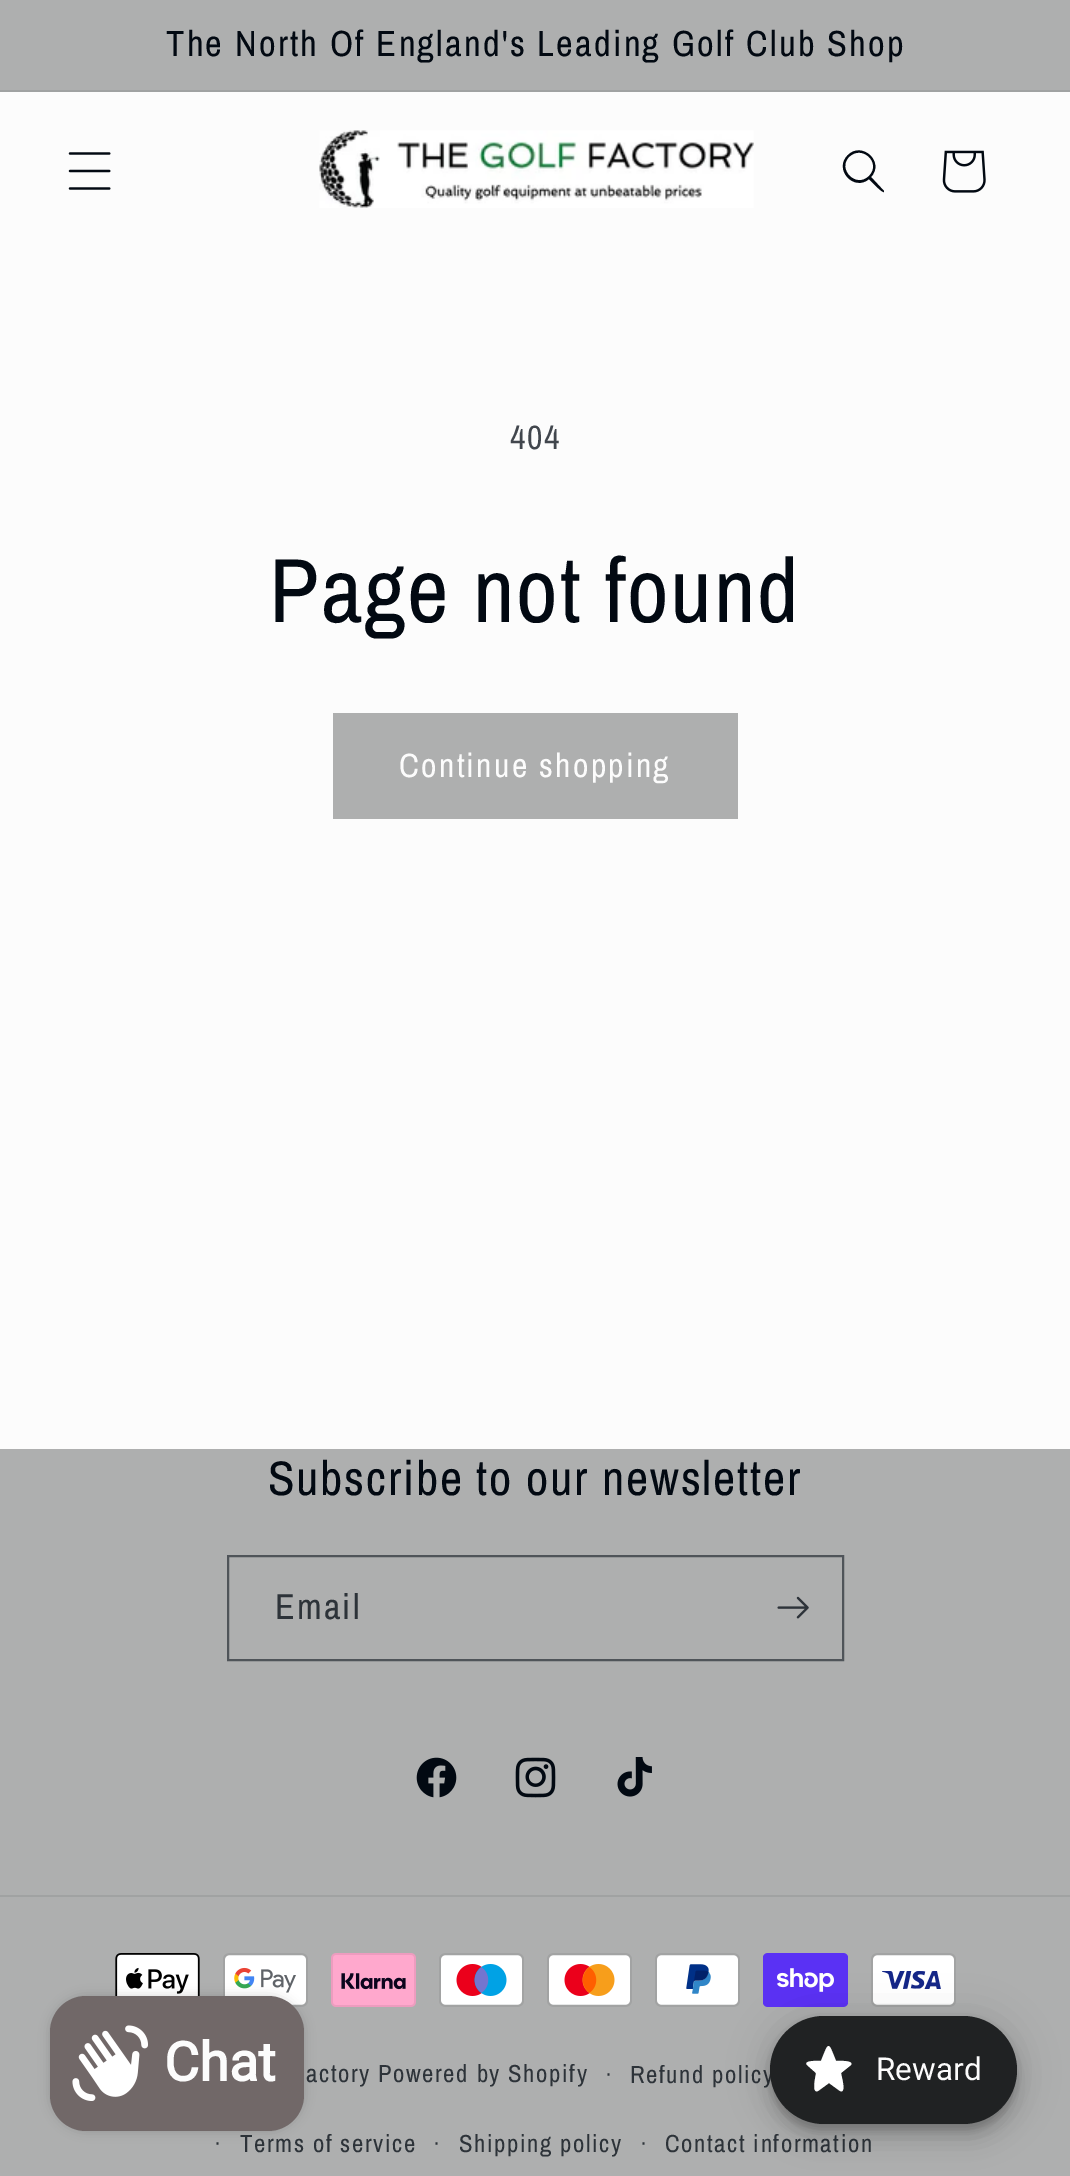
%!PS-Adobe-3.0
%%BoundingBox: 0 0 1070 2176
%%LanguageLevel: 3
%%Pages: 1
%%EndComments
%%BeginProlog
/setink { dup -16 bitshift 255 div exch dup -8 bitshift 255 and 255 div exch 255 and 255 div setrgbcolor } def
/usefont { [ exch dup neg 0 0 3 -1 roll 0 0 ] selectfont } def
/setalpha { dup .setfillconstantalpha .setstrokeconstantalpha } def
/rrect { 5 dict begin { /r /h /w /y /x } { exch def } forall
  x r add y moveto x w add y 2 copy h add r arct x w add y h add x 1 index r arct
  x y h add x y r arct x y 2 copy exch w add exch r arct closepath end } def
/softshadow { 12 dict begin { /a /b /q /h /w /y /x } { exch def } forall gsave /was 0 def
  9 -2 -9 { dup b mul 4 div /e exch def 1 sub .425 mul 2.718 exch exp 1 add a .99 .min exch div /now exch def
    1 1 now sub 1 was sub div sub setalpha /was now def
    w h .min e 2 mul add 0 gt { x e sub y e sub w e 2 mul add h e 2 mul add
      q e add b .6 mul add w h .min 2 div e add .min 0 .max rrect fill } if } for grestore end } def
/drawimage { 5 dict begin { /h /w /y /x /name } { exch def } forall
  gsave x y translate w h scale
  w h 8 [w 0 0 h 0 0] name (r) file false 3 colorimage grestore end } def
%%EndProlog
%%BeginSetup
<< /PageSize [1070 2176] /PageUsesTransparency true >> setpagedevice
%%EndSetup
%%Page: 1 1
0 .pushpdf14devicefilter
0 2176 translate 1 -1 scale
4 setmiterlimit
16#FCFCFC setink
0 0 1070 2176 rectfill
16#AEAFAF setink
0 0 1070 90 rectfill
16#A0A2A2 setink
0 90 1070 2 rectfill
/ArchivoNarrow-Regular 36.45 usefont
16#020912 setink
166 56 moveto 2.25 0 (The North Of England's Leading Golf Club Shop) ashow
(img1.raw) 68 152 43 38 drawimage
(img2.raw) 319 130 435 78 drawimage
869 176 moveto 856 189 837 169 849 157 curveto 862 144 882 163 869 176 curveto closepath 869 179 moveto 854 192 833 169 848 155 curveto 862 141 885 162 871 177 curveto 884 191 lineto 884 192 lineto 882 193 871 181 869 179 curveto closepath eofill
(img3.raw) 942 150 44 43 drawimage
/ArchivoNarrow-Regular 33.75 usefont
16#41464D setink
510 449 moveto 1.5 0 (404) ashow
/ArchivoNarrow-Regular 91 usefont
16#020912 setink
269 622 moveto 1.8 0 (Page not found) ashow
16#AEAFAF setink
333 713 405 106 rectfill
/ArchivoNarrow-Regular 33.75 usefont
16#FCFCFC setink
399 777 moveto 2.25 0 (Continue shopping) ashow
16#AEAFAF setink
0 1449 1070 727 rectfill
/ArchivoNarrow-Regular 48.6 usefont
16#020912 setink
268 1495 moveto 1.8 0 (Subscribe to our newsletter) ashow
16#4F5459 setink
2 setlinewidth
228 1556 615 104 rectstroke
/ArchivoNarrow-Regular 36 usefont
16#2D3339 setink
275 1619 moveto 2.25 0 (Email) ashow
(img4.raw) 777 1596 32 23 drawimage
(img5.raw) 416 1757 41 41 drawimage
(img6.raw) 515 1757 41 41 drawimage
(img7.raw) 617 1757 35 40 drawimage
16#A0A2A2 setink
0 1895 1070 2 rectfill
(img8.raw) 115 1953 85 43 drawimage
(img9.raw) 223 1953 85 54 drawimage
(img10.raw) 331 1953 85 54 drawimage
(img11.raw) 439 1953 85 54 drawimage
(img12.raw) 547 1953 85 54 drawimage
(img13.raw) 655 1953 85 54 drawimage
(img14.raw) 763 1953 85 54 drawimage
(img15.raw) 871 1953 85 54 drawimage
/ArchivoNarrow-Regular 24.75 usefont
16#2D3339 setink
378 2082 moveto 1.6 0 (Powered by Shopify) ashow
/ArchivoNarrow-Regular 22 usefont
606 2082 moveto 1.6 0 (·) ashow
/ArchivoNarrow-Regular 24.75 usefont
630 2083 moveto 1.6 0 (Refund policy) ashow
/ArchivoNarrow-Regular 22 usefont
215 2151 moveto 1.6 0 (·) ashow
/ArchivoNarrow-Regular 24.75 usefont
240 2152 moveto 1.6 0 (Terms of service) ashow
/ArchivoNarrow-Regular 22 usefont
434 2151 moveto 1.6 0 (·) ashow
/ArchivoNarrow-Regular 24.75 usefont
459 2152 moveto 1.6 0 (Shipping policy) ashow
/ArchivoNarrow-Regular 22 usefont
641 2151 moveto 1.6 0 (·) ashow
/ArchivoNarrow-Regular 24.75 usefont
665 2152 moveto 1.6 0 (Contact information) ashow
306 2082 moveto 1.6 0 (actory) ashow
16#000000 setink
50 1996 254 135 36 5.5 0.15 softshadow
16#716868 setink
50 1996 254 135 36 rrect fill
(img16.raw) 72 2025 76 76 drawimage
/Roboto-Bold 54 usefont
16#FCFCFC setink
164 2081 moveto (Chat) show
16#000000 setink
770 2018 247 108 54 20 0.12 softshadow
770 2030 247 108 54 11 0.14 softshadow
772 2025 243 104 52 5.5 0.2 softshadow
16#202223 setink
770 2016 247 108 54 rrect fill
16#FFFFFF setink
816 2073 moveto 807 2065 lineto 803 2060 819 2061 821 2061 curveto 829 2041 828 2041 836 2061 curveto 838 2061 854 2060 851 2065 curveto 841 2073 lineto 841 2075 847 2094 840 2091 curveto 829 2083 lineto 818 2091 lineto 811 2094 816 2075 816 2073 curveto closepath eofill
/Roboto-Regular 31.5 usefont
16#FCFCFC setink
876 2080 moveto (Reward) show
.poppdf14devicefilter showpage
%%EOF
